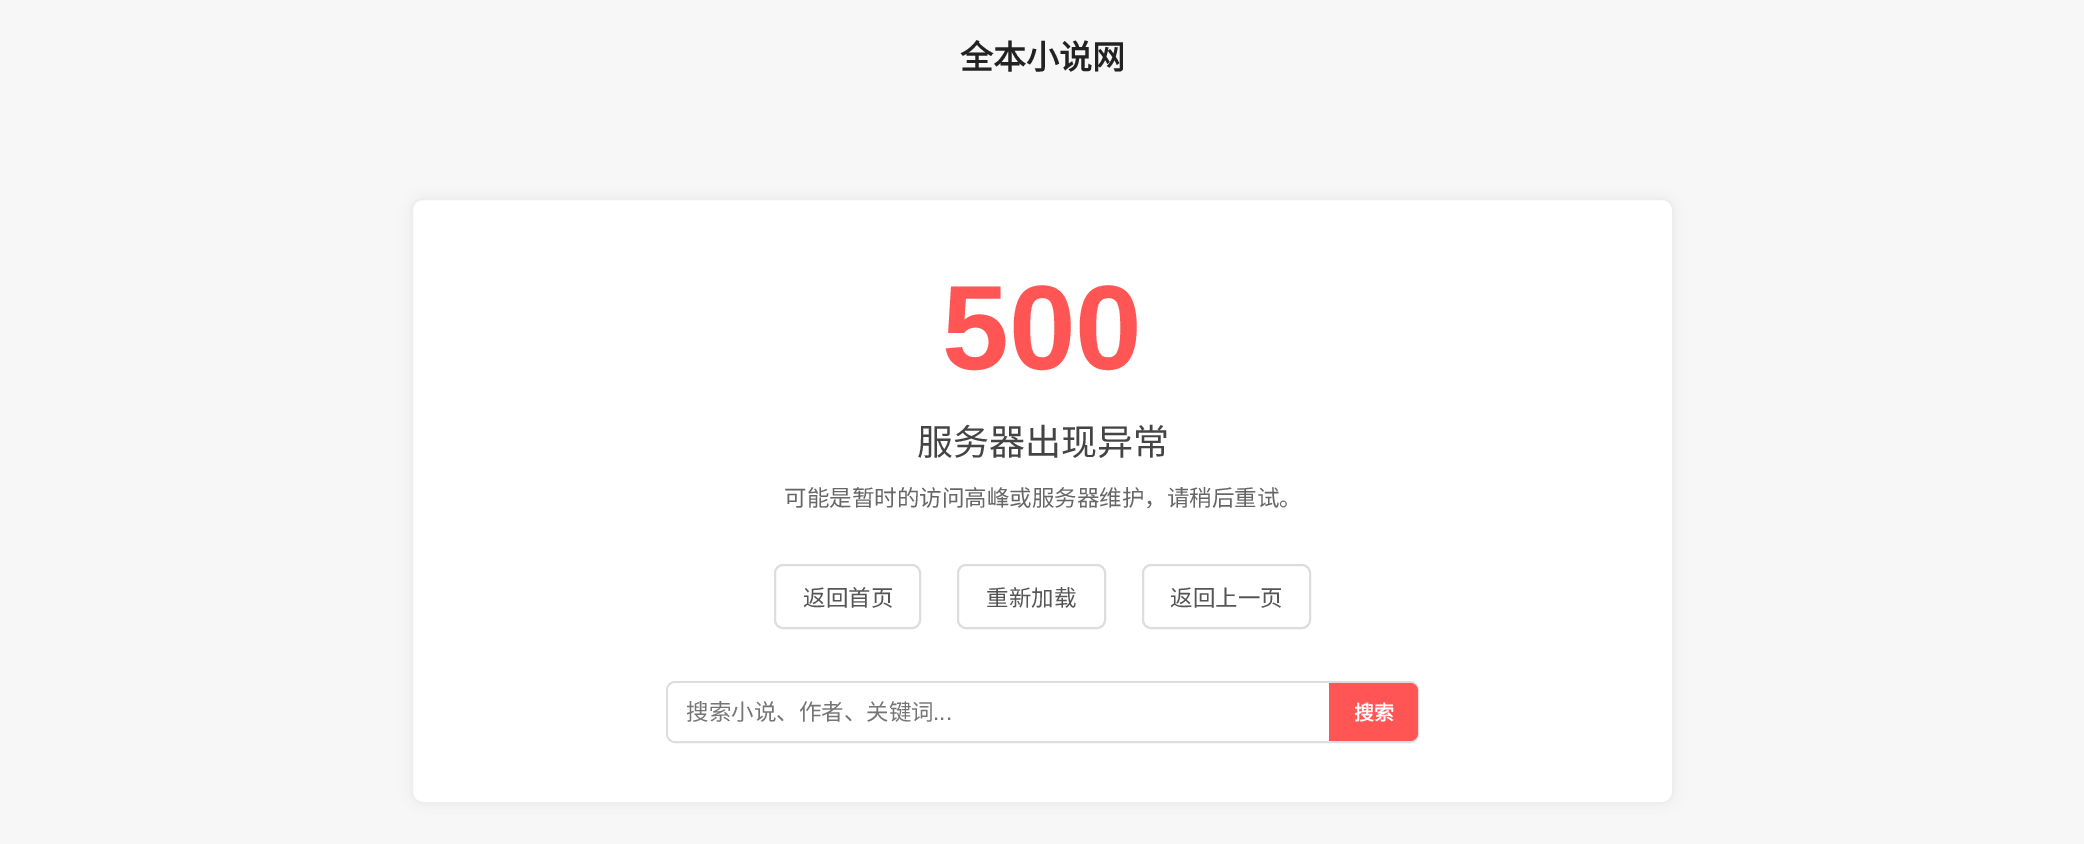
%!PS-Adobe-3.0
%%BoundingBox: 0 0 2084 844
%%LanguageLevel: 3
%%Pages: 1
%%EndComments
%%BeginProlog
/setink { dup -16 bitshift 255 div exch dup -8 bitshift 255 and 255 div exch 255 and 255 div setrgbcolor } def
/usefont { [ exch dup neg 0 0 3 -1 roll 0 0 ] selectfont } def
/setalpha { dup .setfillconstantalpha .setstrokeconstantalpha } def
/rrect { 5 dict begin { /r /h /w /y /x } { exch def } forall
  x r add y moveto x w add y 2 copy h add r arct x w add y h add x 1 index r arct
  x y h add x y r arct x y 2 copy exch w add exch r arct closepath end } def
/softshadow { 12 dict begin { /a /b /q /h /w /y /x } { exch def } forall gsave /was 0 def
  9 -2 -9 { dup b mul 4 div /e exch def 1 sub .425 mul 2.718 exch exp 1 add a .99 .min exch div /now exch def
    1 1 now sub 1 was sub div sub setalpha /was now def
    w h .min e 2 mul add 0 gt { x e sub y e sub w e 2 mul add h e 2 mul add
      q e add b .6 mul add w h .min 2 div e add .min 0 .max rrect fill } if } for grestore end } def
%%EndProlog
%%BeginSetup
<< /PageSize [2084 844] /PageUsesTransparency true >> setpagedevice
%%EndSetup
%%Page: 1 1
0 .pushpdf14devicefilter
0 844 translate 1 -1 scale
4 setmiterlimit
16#F7F7F7 setink
0 0 2084 844 rectfill
/NotoSansCJKSC-Bold 33 usefont
16#222222 setink
960 69 moveto (全本小说网) show
16#000000 setink
411 198 1263 606 12 7.5 0.05 softshadow
16#FFFFFF setink
412 199 1261 604 11 rrect gsave fill grestore
16#EEEEEE setink
2 setlinewidth
stroke
/LiberationSans-Bold 120 usefont
16#FF5555 setink
942 369 moveto (500) show
/NotoSansCJKSC-Regular 36 usefont
16#444444 setink
917 455 moveto (服务器出现异常) show
/NotoSansCJKSC-Regular 22.5 usefont
16#666666 setink
784 506 moveto (可能是暂时的访问高峰或服务器维护，请稍后重试。) show
16#DDDDDD setink
775 565 145 63 8 rrect stroke
16#555555 setink
803 606 moveto (返回首页) show
16#DDDDDD setink
958 565 147 63 8 rrect stroke
16#555555 setink
986 606 moveto (重新加载) show
16#DDDDDD setink
1143 565 167 63 8 rrect stroke
16#555555 setink
1170 606 moveto (返回上一页) show
16#DDDDDD setink
667 682 751 60 8 rrect stroke
16#FFFFFF setink
676 683 moveto 1329 683 lineto 1329 741 lineto 676 741 lineto 671.5 741 668 737.5 668 733 curveto 668 691 lineto 668 686.5 671.5 683 676 683 curveto closepath fill
16#757575 setink
686 720 moveto (搜索小说、作者、关键词) show
/LiberationSans-Regular 22.5 usefont
933 720 moveto (...) show
16#FF5555 setink
1329 683 moveto 1410 683 lineto 1414.5 683 1418 686.5 1418 691 curveto 1418 733 lineto 1418 737.5 1414.5 741 1410 741 curveto 1329 741 lineto closepath fill
/NotoSansCJKSC-Bold 20 usefont
16#FFFFFF setink
1354 720 moveto (搜索) show
.poppdf14devicefilter showpage
%%EOF
